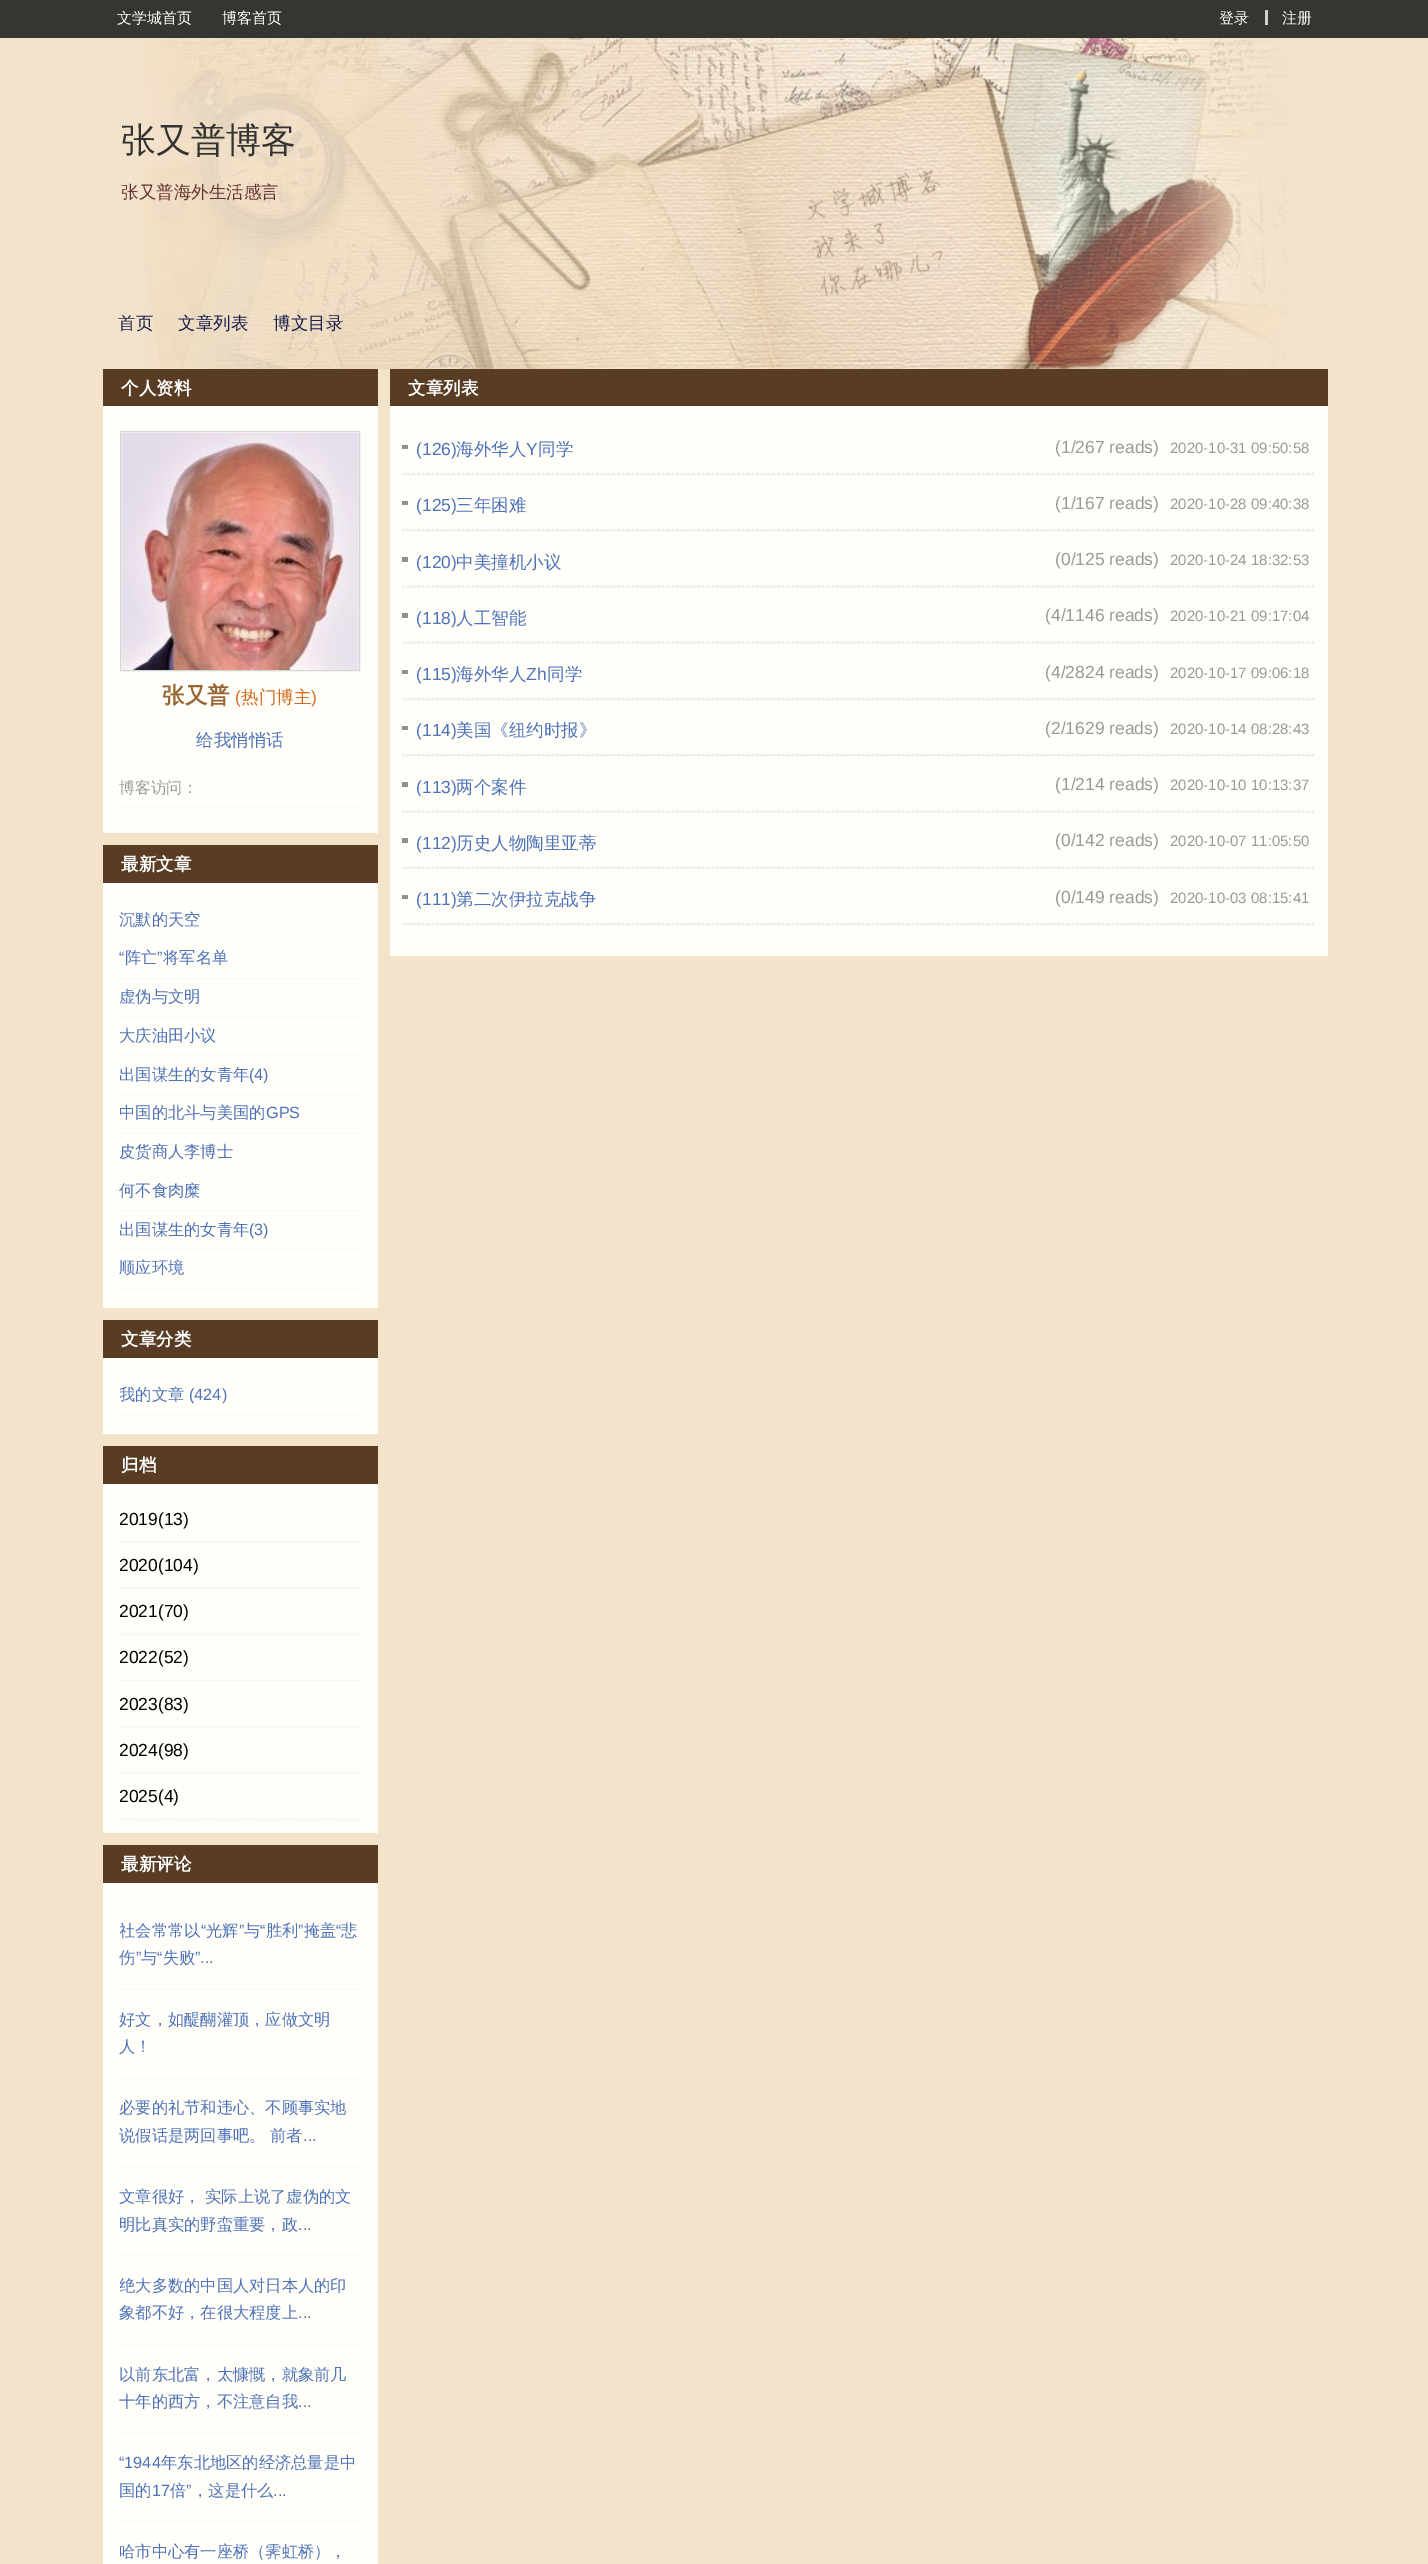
%!PS-Adobe-3.0
%%BoundingBox: 0 0 1428 2564
%%LanguageLevel: 3
%%Pages: 1
%%EndComments
%%BeginProlog
/setink { dup -16 bitshift 255 div exch dup -8 bitshift 255 and 255 div exch 255 and 255 div setrgbcolor } def
/usefont { [ exch dup neg 0 0 3 -1 roll 0 0 ] selectfont } def
/setalpha { dup .setfillconstantalpha .setstrokeconstantalpha } def
/drawimage { 5 dict begin { /h /w /y /x /name } { exch def } forall
  gsave x y translate w h scale
  w h 8 [w 0 0 h 0 0] name (r) file false 3 colorimage grestore end } def
%%EndProlog
%%BeginSetup
<< /PageSize [1428 2564] /PageUsesTransparency true >> setpagedevice
%%EndSetup
%%Page: 1 1
0 .pushpdf14devicefilter
0 2564 translate 1 -1 scale
4 setmiterlimit
16#F3E3CA setink
0 0 1428 2564 rectfill
(img1.raw) 143 37 1145 332 drawimage
0.9 setalpha
16#222222 setink
0 0 1428 38 rectfill
/WenQuanYiZenHei-Medium 15 usefont
1 setalpha
16#FFFFFF setink
[
    [(文学城首页) 117 23]
    [(博客首页) 222 23]
    [(登录) 1219 23]
] { aload pop moveto show } forall
16#D0CECC setink
1265 10 3 15 rectfill
16#FFFFFF setink
1282 23 moveto (注册) show
/WenQuanYiZenHei-Medium 35 usefont
16#333333 setink
121 152 moveto (张又普博客) show
/WenQuanYiZenHei-Medium 17.5 usefont
16#663333 setink
121 198 moveto (张又普海外生活感言) show
16#181D4B setink
[
    [(首页) 118 329]
    [(文章列表) 178 329]
    [(博文目录) 273 329]
] { aload pop moveto show } forall
16#583D24 setink
103 369 275 37 rectfill
/WenQuanYiZenHei-Bold 17.5 usefont
16#FFFFFF setink
121 394 moveto (个人资料) show
16#FFFEF9 setink
103 406 275 427 rectfill
16#D3D7D4 setink
120.5 431.5 239 239 rectstroke
(img2.raw) 121 432 238 238 drawimage
/WenQuanYiZenHei-Bold 22.5 usefont
16#996633 setink
162 703 moveto (张又普) show
/LiberationSans-Regular 17.5 usefont
16#D2691E setink
235 703 moveto (\() show
/WenQuanYiZenHei-Medium 17.5 usefont
241 703 moveto (热门博主) show
/LiberationSans-Regular 17.5 usefont
311 703 moveto (\)) show
/WenQuanYiZenHei-Medium 17.5 usefont
16#4E72B8 setink
196 746 moveto (给我悄悄话) show
16#F8F8F8 setink
120 806 240 1 rectfill
/WenQuanYiZenHei-Medium 15.75 usefont
16#999999 setink
119 793 moveto (博客访问：) show
16#583D24 setink
103 845 275 38 rectfill
/WenQuanYiZenHei-Bold 17.5 usefont
16#FFFFFF setink
121 870 moveto (最新文章) show
16#FFFEF9 setink
103 883 275 425 rectfill
16#F8F8F8 setink
120 939 240 1 rectfill
/WenQuanYiZenHei-Medium 16.25 usefont
16#4E72B8 setink
119 925 moveto (沉默的天空) show
16#F8F8F8 setink
120 978 240 1 rectfill
/LiberationSans-Regular 16.25 usefont
16#4E72B8 setink
119 963 moveto (“) show
/WenQuanYiZenHei-Medium 16.25 usefont
125 963 moveto (阵亡) show
/LiberationSans-Regular 16.25 usefont
157 963 moveto (”) show
/WenQuanYiZenHei-Medium 16.25 usefont
163 963 moveto (将军名单) show
16#F8F8F8 setink
120 1016 240 1 rectfill
16#4E72B8 setink
119 1002 moveto (虚伪与文明) show
16#F8F8F8 setink
120 1055 240 1 rectfill
16#4E72B8 setink
119 1041 moveto (大庆油田小议) show
16#F8F8F8 setink
120 1094 240 1 rectfill
16#4E72B8 setink
119 1080 moveto (出国谋生的女青年) show
/LiberationSans-Regular 16.25 usefont
249 1080 moveto (\(4\)) show
16#F8F8F8 setink
120 1133 240 1 rectfill
/WenQuanYiZenHei-Medium 16.25 usefont
16#4E72B8 setink
119 1118 moveto (中国的北斗与美国的) show
/LiberationSans-Regular 16.25 usefont
266 1118 moveto (GPS) show
16#F8F8F8 setink
120 1171 240 1 rectfill
/WenQuanYiZenHei-Medium 16.25 usefont
16#4E72B8 setink
119 1157 moveto (皮货商人李博士) show
16#F8F8F8 setink
120 1210 240 1 rectfill
16#4E72B8 setink
119 1196 moveto (何不食肉糜) show
16#F8F8F8 setink
120 1249 240 1 rectfill
16#4E72B8 setink
119 1235 moveto (出国谋生的女青年) show
/LiberationSans-Regular 16.25 usefont
249 1235 moveto (\(3\)) show
16#F8F8F8 setink
120 1288 240 1 rectfill
/WenQuanYiZenHei-Medium 16.25 usefont
16#4E72B8 setink
119 1273 moveto (顺应环境) show
16#583D24 setink
103 1320 275 38 rectfill
/WenQuanYiZenHei-Bold 17.5 usefont
16#FFFFFF setink
121 1345 moveto (文章分类) show
16#FFFEF9 setink
103 1358 275 76 rectfill
16#F8F8F8 setink
120 1414 240 1 rectfill
gsave
120 1381 240 28 rectclip
/WenQuanYiZenHei-Medium 16.25 usefont
16#4E72B8 setink
119 1400 moveto (我的文章) show
grestore
/LiberationSans-Regular 16.25 usefont
16#4E72B8 setink
189 1400 moveto (\(424\)) show
16#583D24 setink
103 1446 275 38 rectfill
/WenQuanYiZenHei-Bold 17.5 usefont
16#FFFFFF setink
121 1471 moveto (归档) show
16#FFFEF9 setink
103 1484 275 349 rectfill
16#EEEEEE setink
1.2 setlinewidth
[1.25 1.25] 0 setdash
120 1542 moveto 360 1542 lineto stroke
/LiberationSans-Regular 17.5 usefont
16#000000 setink
119 1525 moveto (2019\(13\)) show
16#EEEEEE setink
120 1588 moveto 360 1588 lineto stroke
16#000000 setink
119 1571 moveto (2020\(104\)) show
16#EEEEEE setink
120 1634.5 moveto 360 1634.5 lineto stroke
16#000000 setink
119 1617 moveto (2021\(70\)) show
16#EEEEEE setink
120 1680.5 moveto 360 1680.5 lineto stroke
16#000000 setink
119 1663 moveto (2022\(52\)) show
16#EEEEEE setink
120 1727 moveto 360 1727 lineto stroke
16#000000 setink
119 1710 moveto (2023\(83\)) show
16#EEEEEE setink
120 1773 moveto 360 1773 lineto stroke
16#000000 setink
119 1756 moveto (2024\(98\)) show
16#EEEEEE setink
120 1819.5 moveto 360 1819.5 lineto stroke
16#000000 setink
119 1802 moveto (2025\(4\)) show
16#583D24 setink
103 1845 275 38 rectfill
/WenQuanYiZenHei-Bold 17.5 usefont
16#FFFFFF setink
121 1870 moveto (最新评论) show
16#FFFEF9 setink
103 1883 275 681 rectfill
16#F8F8F8 setink
120 1989 240 1 rectfill
gsave
120 1901 240 88 rectclip
/WenQuanYiZenHei-Medium 16.25 usefont
16#4E72B8 setink
119 1936 moveto (社会常常以) show
grestore
/LiberationSans-Regular 16.25 usefont
16#4E72B8 setink
201 1936 moveto (“) show
/WenQuanYiZenHei-Medium 16.25 usefont
206 1936 moveto (光辉) show
/LiberationSans-Regular 16.25 usefont
239 1936 moveto (”) show
/WenQuanYiZenHei-Medium 16.25 usefont
244 1936 moveto (与) show
/LiberationSans-Regular 16.25 usefont
260 1936 moveto (“) show
/WenQuanYiZenHei-Medium 16.25 usefont
266 1936 moveto (胜利) show
/LiberationSans-Regular 16.25 usefont
298 1936 moveto (”) show
/WenQuanYiZenHei-Medium 16.25 usefont
304 1936 moveto (掩盖) show
/LiberationSans-Regular 16.25 usefont
336 1936 moveto (“) show
/WenQuanYiZenHei-Medium 16.25 usefont
341 1936 moveto (悲) show
119 1963 moveto (伤) show
/LiberationSans-Regular 16.25 usefont
136 1963 moveto (”) show
/WenQuanYiZenHei-Medium 16.25 usefont
141 1963 moveto (与) show
/LiberationSans-Regular 16.25 usefont
157 1963 moveto (“) show
/WenQuanYiZenHei-Medium 16.25 usefont
163 1963 moveto (失败) show
/LiberationSans-Regular 16.25 usefont
195 1963 moveto (”...) show
16#F8F8F8 setink
120 2078 240 1 rectfill
/WenQuanYiZenHei-Medium 16.25 usefont
16#4E72B8 setink
119 2025 moveto (好文，如醍醐灌顶，应做文明) show
119 2052 moveto (人！) show
16#F8F8F8 setink
120 2166 240 1 rectfill
16#4E72B8 setink
119 2113 moveto (必要的礼节和违心、不顾事实地) show
119 2141 moveto (说假话是两回事吧。 前者) show
/LiberationSans-Regular 16.25 usefont
303 2141 moveto (...) show
16#F8F8F8 setink
120 2255 240 1 rectfill
/WenQuanYiZenHei-Medium 16.25 usefont
16#4E72B8 setink
119 2202 moveto (文章很好， 实际上说了虚伪的文) show
119 2230 moveto (明比真实的野蛮重要，政) show
/LiberationSans-Regular 16.25 usefont
298 2230 moveto (...) show
16#F8F8F8 setink
120 2344 240 1 rectfill
gsave
120 2256 240 88 rectclip
/WenQuanYiZenHei-Medium 16.25 usefont
16#4E72B8 setink
119 2291 moveto (绝大多数的中国人对日本人的印) show
grestore
/WenQuanYiZenHei-Medium 16.25 usefont
16#4E72B8 setink
119 2318 moveto (象都不好，在很大程度上) show
/LiberationSans-Regular 16.25 usefont
298 2318 moveto (...) show
16#F8F8F8 setink
120 2433 240 1 rectfill
/WenQuanYiZenHei-Medium 16.25 usefont
16#4E72B8 setink
119 2380 moveto (以前东北富，太慷慨，就象前几) show
119 2407 moveto (十年的西方，不注意自我) show
/LiberationSans-Regular 16.25 usefont
298 2407 moveto (...) show
16#F8F8F8 setink
120 2521 240 1 rectfill
16#4E72B8 setink
119 2468 moveto (“1944) show
/WenQuanYiZenHei-Medium 16.25 usefont
161 2468 moveto (年东北地区的经济总量是中) show
119 2496 moveto (国的) show
/LiberationSans-Regular 16.25 usefont
152 2496 moveto (17) show
/WenQuanYiZenHei-Medium 16.25 usefont
170 2496 moveto (倍) show
/LiberationSans-Regular 16.25 usefont
186 2496 moveto (”) show
/WenQuanYiZenHei-Medium 16.25 usefont
192 2496 moveto (，这是什么) show
/LiberationSans-Regular 16.25 usefont
273 2496 moveto (...) show
/WenQuanYiZenHei-Medium 16.25 usefont
119 2557 moveto (哈市中心有一座桥（霁虹桥），) show
16#583D24 setink
390 369 938 37 rectfill
/WenQuanYiZenHei-Bold 17.5 usefont
16#FFFFFF setink
408 394 moveto (文章列表) show
16#FFFEF9 setink
390 406 938 550 rectfill
(img3.raw) 403 472 911 2 drawimage
16#DDDDDD setink
402.5 474.5 moveto 1315 474.5 lineto stroke
16#909090 setink
402 445 6 4 rectfill
/LiberationSans-Regular 17.5 usefont
16#4E72B8 setink
416 455 moveto (\(126\)) show
/WenQuanYiZenHei-Medium 17.5 usefont
456 455 moveto (海外华人) show
/LiberationSans-Regular 17.5 usefont
526 455 moveto (Y) show
/WenQuanYiZenHei-Medium 17.5 usefont
538 455 moveto (同学) show
/LiberationSans-Regular 17.5 usefont
16#999999 setink
1055 453 moveto (\(1/267 reads\)) show
/LiberationSans-Regular 15 usefont
1170 453 moveto (2020-10-31 09:50:58) show
(img4.raw) 402 528 912 2 drawimage
16#DDDDDD setink
402.5 530.5 moveto 1315 530.5 lineto stroke
16#909090 setink
402 501 6 4 rectfill
/LiberationSans-Regular 17.5 usefont
16#4E72B8 setink
416 511 moveto (\(125\)) show
/WenQuanYiZenHei-Medium 17.5 usefont
456 511 moveto (三年困难) show
/LiberationSans-Regular 17.5 usefont
16#999999 setink
1055 509 moveto (\(1/167 reads\)) show
/LiberationSans-Regular 15 usefont
1170 509 moveto (2020-10-28 09:40:38) show
(img5.raw) 402 585 912 2 drawimage
16#DDDDDD setink
402.5 587 moveto 1315 587 lineto stroke
16#909090 setink
402 557 6 5 rectfill
gsave
403 549 526 22 rectclip
/LiberationSans-Regular 17.5 usefont
16#4E72B8 setink
416 568 moveto (\(120\)) show
grestore
/WenQuanYiZenHei-Medium 17.5 usefont
16#4E72B8 setink
456 568 moveto (中美撞机小议) show
/LiberationSans-Regular 17.5 usefont
16#999999 setink
1055 565 moveto (\(0/125 reads\)) show
/LiberationSans-Regular 15 usefont
1170 565 moveto (2020-10-24 18:32:53) show
(img6.raw) 403 641 911 2 drawimage
16#DDDDDD setink
402.5 643 moveto 1315 643 lineto stroke
16#909090 setink
402 613 6 5 rectfill
/LiberationSans-Regular 17.5 usefont
16#4E72B8 setink
416 624 moveto (\(118\)) show
/WenQuanYiZenHei-Medium 17.5 usefont
456 624 moveto (人工智能) show
/LiberationSans-Regular 17.5 usefont
16#999999 setink
1045 621 moveto (\(4/1146 reads\)) show
/LiberationSans-Regular 15 usefont
1170 621 moveto (2020-10-21 09:17:04) show
(img3.raw) 403 697 911 2 drawimage
16#DDDDDD setink
402.5 699.5 moveto 1315 699.5 lineto stroke
16#909090 setink
402 670 6 4 rectfill
/LiberationSans-Regular 17.5 usefont
16#4E72B8 setink
416 680 moveto (\(115\)) show
/WenQuanYiZenHei-Medium 17.5 usefont
456 680 moveto (海外华人) show
/LiberationSans-Regular 17.5 usefont
526 680 moveto (Zh) show
/WenQuanYiZenHei-Medium 17.5 usefont
547 680 moveto (同学) show
/LiberationSans-Regular 17.5 usefont
16#999999 setink
1045 678 moveto (\(4/2824 reads\)) show
/LiberationSans-Regular 15 usefont
1170 678 moveto (2020-10-17 09:06:18) show
(img4.raw) 402 753 912 2 drawimage
16#DDDDDD setink
402.5 755.5 moveto 1315 755.5 lineto stroke
16#909090 setink
402 726 6 4 rectfill
/LiberationSans-Regular 17.5 usefont
16#4E72B8 setink
416 736 moveto (\(114\)) show
/WenQuanYiZenHei-Medium 17.5 usefont
456 736 moveto (美国《纽约时报》) show
/LiberationSans-Regular 17.5 usefont
16#999999 setink
1045 734 moveto (\(2/1629 reads\)) show
/LiberationSans-Regular 15 usefont
1170 734 moveto (2020-10-14 08:28:43) show
(img5.raw) 402 810 912 2 drawimage
16#DDDDDD setink
402.5 812 moveto 1315 812 lineto stroke
16#909090 setink
402 782 6 5 rectfill
gsave
403 774 526 22 rectclip
/LiberationSans-Regular 17.5 usefont
16#4E72B8 setink
416 793 moveto (\(113\)) show
grestore
/WenQuanYiZenHei-Medium 17.5 usefont
16#4E72B8 setink
456 793 moveto (两个案件) show
/LiberationSans-Regular 17.5 usefont
16#999999 setink
1055 790 moveto (\(1/214 reads\)) show
/LiberationSans-Regular 15 usefont
1170 790 moveto (2020-10-10 10:13:37) show
(img6.raw) 403 866 911 2 drawimage
16#DDDDDD setink
402.5 868 moveto 1315 868 lineto stroke
16#909090 setink
402 838 6 5 rectfill
/LiberationSans-Regular 17.5 usefont
16#4E72B8 setink
416 849 moveto (\(112\)) show
/WenQuanYiZenHei-Medium 17.5 usefont
456 849 moveto (历史人物陶里亚蒂) show
/LiberationSans-Regular 17.5 usefont
16#999999 setink
1055 846 moveto (\(0/142 reads\)) show
/LiberationSans-Regular 15 usefont
1170 846 moveto (2020-10-07 11:05:50) show
(img3.raw) 403 922 911 2 drawimage
16#DDDDDD setink
402.5 924.5 moveto 1315 924.5 lineto stroke
16#909090 setink
402 895 6 4 rectfill
/LiberationSans-Regular 17.5 usefont
16#4E72B8 setink
416 905 moveto (\(111\)) show
/WenQuanYiZenHei-Medium 17.5 usefont
456 905 moveto (第二次伊拉克战争) show
/LiberationSans-Regular 17.5 usefont
16#999999 setink
1055 903 moveto (\(0/149 reads\)) show
/LiberationSans-Regular 15 usefont
1170 903 moveto (2020-10-03 08:15:41) show
.poppdf14devicefilter showpage
%%EOF
